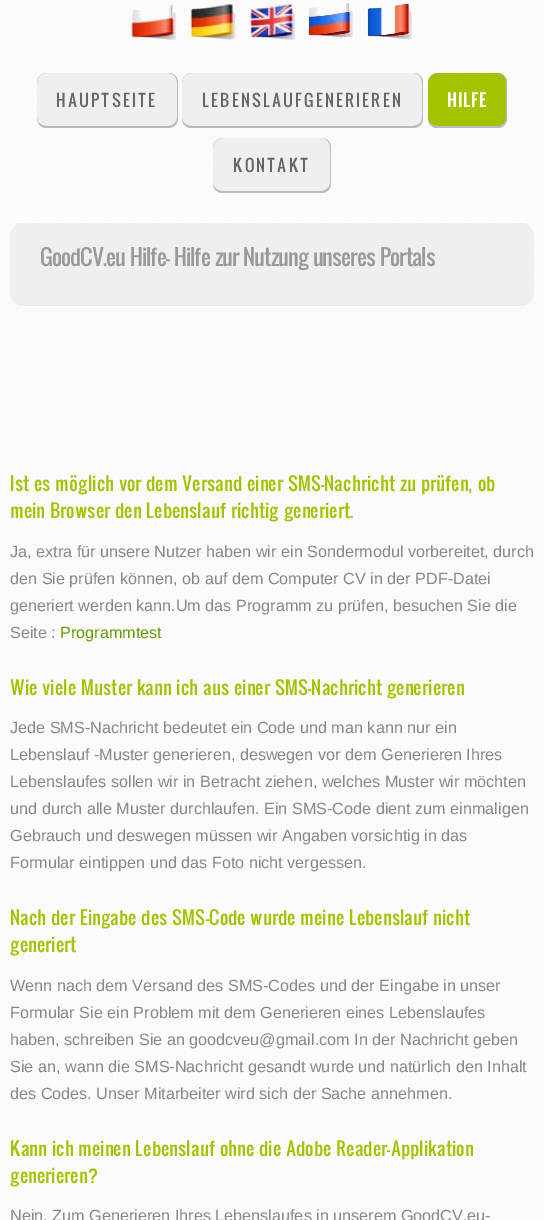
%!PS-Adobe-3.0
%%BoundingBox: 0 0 544 1220
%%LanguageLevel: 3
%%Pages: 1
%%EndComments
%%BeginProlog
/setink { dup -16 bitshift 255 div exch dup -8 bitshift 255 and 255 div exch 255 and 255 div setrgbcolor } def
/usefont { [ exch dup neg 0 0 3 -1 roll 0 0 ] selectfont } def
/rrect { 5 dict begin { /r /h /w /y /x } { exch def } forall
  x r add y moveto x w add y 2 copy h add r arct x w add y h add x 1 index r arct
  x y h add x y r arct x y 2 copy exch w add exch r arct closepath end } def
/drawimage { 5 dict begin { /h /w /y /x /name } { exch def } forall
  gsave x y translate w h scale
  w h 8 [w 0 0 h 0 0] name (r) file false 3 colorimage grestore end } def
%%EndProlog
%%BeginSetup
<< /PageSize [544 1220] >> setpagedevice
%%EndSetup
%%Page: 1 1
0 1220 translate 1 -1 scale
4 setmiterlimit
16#FFFFFF setink
0 0 544 1220 rectfill
(img1.raw) 0 0 544 1220 drawimage
(img2.raw) 130 4 47 39 drawimage
(img3.raw) 190 4 46 36 drawimage
(img4.raw) 250 4 46 38 drawimage
(img5.raw) 307 3 46 35 drawimage
(img6.raw) 366 3 46 37 drawimage
16#EFEFEF setink
37 73 141 55 10 rrect fill
16#BBBBBB setink
47 73 moveto 168 73 lineto 174 73 178 77 178 83 curveto 178 118 lineto 178 124 174 128 168 128 curveto 47 128 lineto 41 128 37 124 37 118 curveto 37 83 lineto 37 77 41 73 47 73 curveto closepath 47 73 moveto 168 73 lineto 173 73 177 77 177 83 curveto 177 118 lineto 177 122 173 126 168 126 curveto 47 126 lineto 41 126 37 122 37 118 curveto 37 83 lineto 37 77 41 73 47 73 curveto closepath eofill
/Oswald-Regular 16.2 usefont
16#666666 setink
56 107 moveto 2 0 (HAUPTSEITE) ashow
16#EFEFEF setink
182 73 241 55 10 rrect fill
16#BBBBBB setink
192 73 moveto 413 73 lineto 419 73 423 77 423 83 curveto 423 118 lineto 423 124 419 128 413 128 curveto 192 128 lineto 186 128 182 124 182 118 curveto 182 83 lineto 182 77 186 73 192 73 curveto closepath 192 73 moveto 413 73 lineto 418 73 422 77 422 83 curveto 422 118 lineto 422 122 418 126 413 126 curveto 192 126 lineto 186 126 182 122 182 118 curveto 182 83 lineto 182 77 186 73 192 73 curveto closepath eofill
16#666666 setink
202 107 moveto 2 0 (LEBENSLAUFGENERIEREN) ashow
16#A5C100 setink
428 73 79 55 10 rrect fill
16#BBBBBB setink
438 73 moveto 497 73 lineto 503 73 507 77 507 83 curveto 507 118 lineto 507 124 503 128 497 128 curveto 438 128 lineto 432 128 428 124 428 118 curveto 428 83 lineto 428 77 432 73 438 73 curveto closepath 438 73 moveto 497 73 lineto 502 73 506 77 506 83 curveto 506 118 lineto 506 122 502 126 497 126 curveto 438 126 lineto 432 126 428 122 428 118 curveto 428 83 lineto 428 77 432 73 438 73 curveto closepath eofill
/Oswald-Bold 16.2 usefont
16#FFFFFF setink
447 107 moveto 1 0 (HILFE) ashow
16#EFEFEF setink
213 138 118 55 10 rrect fill
16#BBBBBB setink
223 138 moveto 321 138 lineto 327 138 331 142 331 148 curveto 331 183 lineto 331 189 327 193 321 193 curveto 223 193 lineto 217 193 213 189 213 183 curveto 213 148 lineto 213 142 217 138 223 138 curveto closepath 223 138 moveto 321 138 lineto 326 138 330 142 330 148 curveto 330 183 lineto 330 187 326 191 321 191 curveto 223 191 lineto 217 191 213 187 213 183 curveto 213 148 lineto 213 142 217 138 223 138 curveto closepath eofill
/Oswald-Regular 16.2 usefont
16#666666 setink
233 172 moveto 2 0 (KONTAKT) ashow
16#EFEFEF setink
10 222 524 85 15 rrect fill
16#FFFFFF setink
18 222 509 1 rectfill
18 306 509 1 rectfill
/Oswald-Regular 21.6 usefont
16#999999 setink
40 266 moveto -1 0 (GoodCV.eu Hilfe- Hilfe zur Nutzung unseres Portals) ashow
/Oswald-Regular 18 usefont
16#A5C100 setink
10 491 moveto (Ist es möglich vor dem Versand einer SMS-Nachricht zu prüfen, ob) show
10 518 moveto (mein Browser den Lebenslauf richtig generiert.) show
/LiberationSans-Regular 16.2 usefont
16#888888 setink
[
    [(Ja, extra für unsere Nutzer haben wir ein Sondermodul vorbereitet, durch) 10 557]
    [(den Sie prüfen können, ob auf dem Computer CV in der PDF-Datei) 10 584]
    [(generiert werden kann.Um das Programm zu prüfen, besuchen Sie die) 10 611]
    [(Seite :) 10 638]
] { aload pop moveto show } forall
16#669B02 setink
60 638 moveto (Programmtest) show
/Oswald-Regular 18 usefont
16#A5C100 setink
10 695 moveto (Wie viele Muster kann ich aus einer SMS-Nachricht generieren) show
/LiberationSans-Regular 16.2 usefont
16#888888 setink
[
    [(Jede SMS-Nachricht bedeutet ein Code und man kann nur ein) 10 733]
    [(Lebenslauf -Muster generieren, deswegen vor dem Generieren Ihres) 10 760]
    [(Lebenslaufes sollen wir in Betracht ziehen, welches Muster wir möchten) 10 787]
    [(und durch alle Muster durchlaufen. Ein SMS-Code dient zum einmaligen) 10 814]
    [(Gebrauch und deswegen müssen wir Angaben vorsichtig in das) 10 841]
    [(Formular eintippen und das Foto nicht vergessen.) 10 868]
] { aload pop moveto show } forall
/Oswald-Regular 18 usefont
16#A5C100 setink
10 925 moveto (Nach der Eingabe des SMS-Code wurde meine Lebenslauf nicht) show
10 952 moveto (generiert) show
/LiberationSans-Regular 16.2 usefont
16#888888 setink
[
    [(Wenn nach dem Versand des SMS-Codes und der Eingabe in unser) 10 991]
    [(Formular Sie ein Problem mit dem Generieren eines Lebenslaufes) 10 1018]
    [(haben, schreiben Sie an goodcveu@gmail.com In der Nachricht geben) 10 1045]
    [(Sie an, wann die SMS-Nachricht gesandt wurde und natürlich den Inhalt) 10 1072]
    [(des Codes. Unser Mitarbeiter wird sich der Sache annehmen.) 10 1099]
] { aload pop moveto show } forall
/Oswald-Regular 18 usefont
16#A5C100 setink
10 1156 moveto (Kann ich meinen Lebenslauf ohne die Adobe Reader-Applikation) show
10 1183 moveto (generieren?) show
/LiberationSans-Regular 16.2 usefont
16#888888 setink
10 1221 moveto (Nein. Zum Generieren Ihres Lebenslaufes in unserem GoodCV.eu-) show
showpage
%%EOF
